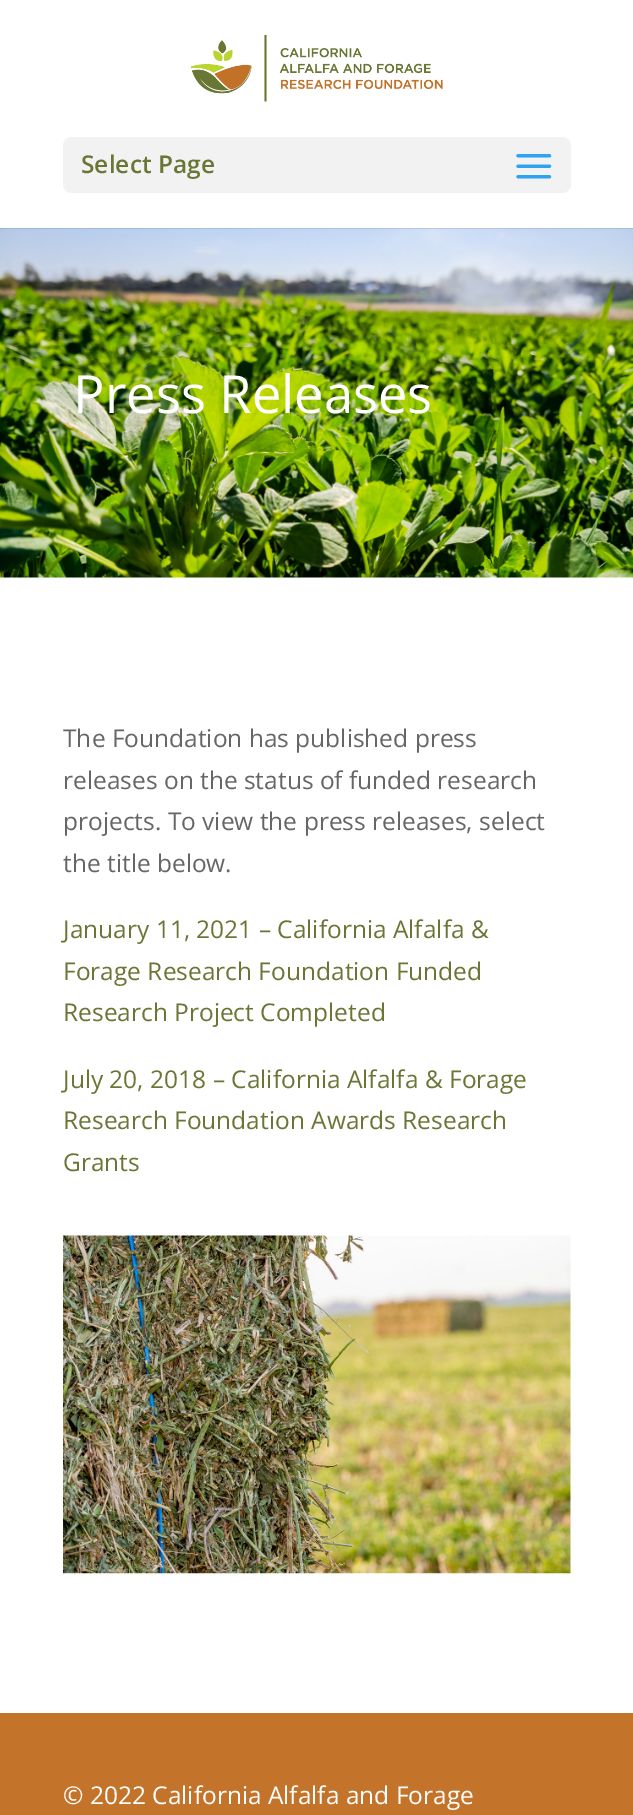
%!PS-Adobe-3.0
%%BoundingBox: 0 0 633 1815
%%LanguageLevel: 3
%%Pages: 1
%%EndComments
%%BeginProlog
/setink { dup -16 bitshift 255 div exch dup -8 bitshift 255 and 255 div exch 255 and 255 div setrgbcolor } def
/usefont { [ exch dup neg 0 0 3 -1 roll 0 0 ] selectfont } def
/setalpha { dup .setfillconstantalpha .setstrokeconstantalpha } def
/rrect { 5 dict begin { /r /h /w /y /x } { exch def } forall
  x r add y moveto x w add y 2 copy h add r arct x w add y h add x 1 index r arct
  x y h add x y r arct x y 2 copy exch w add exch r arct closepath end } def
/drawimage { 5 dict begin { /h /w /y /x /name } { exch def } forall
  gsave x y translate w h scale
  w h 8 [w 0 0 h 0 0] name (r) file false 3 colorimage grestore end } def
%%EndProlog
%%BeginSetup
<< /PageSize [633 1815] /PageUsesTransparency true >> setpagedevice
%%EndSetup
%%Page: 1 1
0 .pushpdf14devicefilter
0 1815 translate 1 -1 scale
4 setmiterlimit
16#FFFFFF setink
0 0 633 1815 rectfill
(img3.raw) 0 228 633 350 drawimage
0.1 setalpha
16#000000 setink
0 228 moveto 0 229 lineto 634 229 lineto 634 2 lineto 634 228 lineto closepath fill
1 setalpha
(img1.raw) 190 35 253 67 drawimage
16#F2F2F2 setink
63 137 508 56 9 rrect fill
/OpenSans-SemiBold 24.5 usefont
16#697636 setink
81 173 moveto (Select Page) show
(img2.raw) 516 154 36 25 drawimage
/OpenSans-Regular 52.5 usefont
16#FFFFFF setink
73 413 moveto (Press Releases) show
/OpenSans-Regular 24.5 usefont
16#666666 setink
[
    [(The Foundation has published press) 63 747]
    [(releases on the status of funded research) 63 789]
    [(projects. To view the press releases, select) 63 830]
    [(the title below.) 63 872]
] { aload pop moveto show } forall
16#697636 setink
[
    [(January 11, 2021 – California Alfalfa &) 63 938]
    [(Forage Research Foundation Funded) 63 980]
    [(Research Project Completed) 63 1021]
    [(July 20, 2018 – California Alfalfa & Forage) 63 1088]
    [(Research Foundation Awards Research) 63 1129]
    [(Grants) 63 1171]
] { aload pop moveto show } forall
(img4.raw) 63 1235 508 339 drawimage
16#C4732A setink
0 1713 633 102 rectfill
16#FFFFFF setink
63 1804 moveto (© 2022 California Alfalfa and Forage) show
.poppdf14devicefilter showpage
%%EOF
